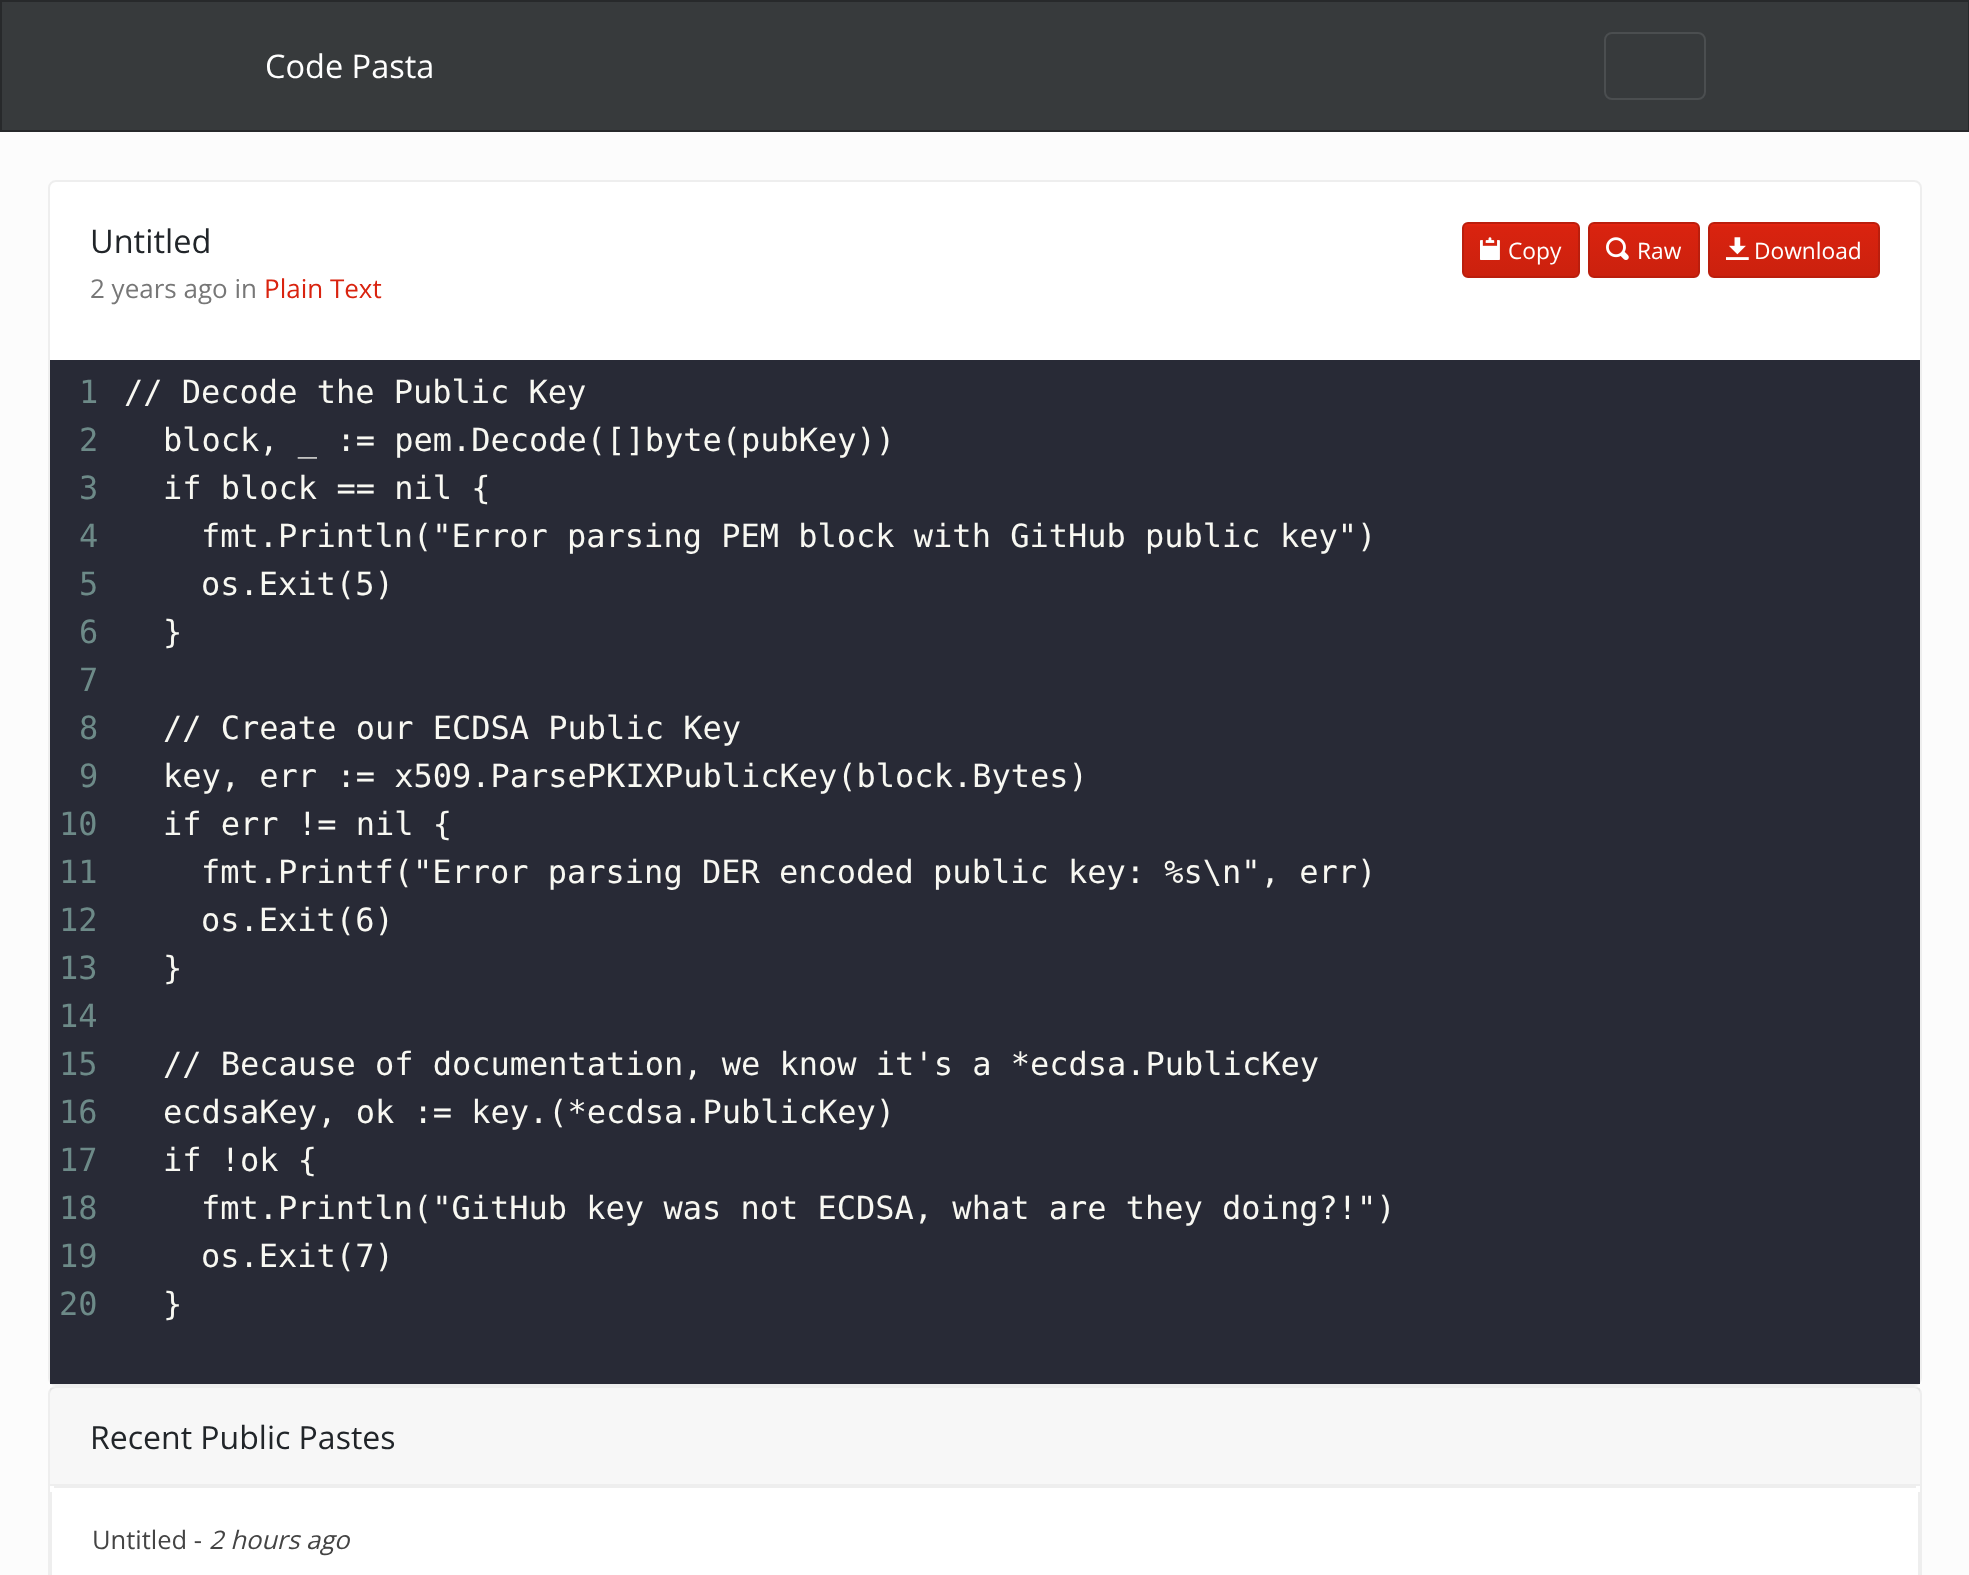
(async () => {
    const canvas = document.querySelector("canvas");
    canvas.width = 1969;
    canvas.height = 1575;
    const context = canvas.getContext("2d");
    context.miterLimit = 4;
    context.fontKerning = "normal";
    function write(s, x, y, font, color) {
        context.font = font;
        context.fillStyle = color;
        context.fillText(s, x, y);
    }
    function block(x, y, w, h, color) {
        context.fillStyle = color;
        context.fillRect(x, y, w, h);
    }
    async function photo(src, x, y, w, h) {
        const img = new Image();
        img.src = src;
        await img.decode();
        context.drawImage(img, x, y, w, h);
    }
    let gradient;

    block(0, 0, 1969, 1575, "rgb(252, 252, 252)");
    context.fillStyle = "rgb(55, 58, 60)";
    context.beginPath();
    context.rect(1, 1, 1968, 130);
    context.fill();
    context.strokeStyle = "rgb(39, 41, 43)";
    context.lineWidth = 2;
    context.stroke();
    write("Code Pasta", 265, 78, "32.5px Open Sans", "rgb(255, 255, 255)");
    context.beginPath();
    context.roundRect(1605, 33, 100, 66, 7);
    context.strokeStyle = "rgb(75, 78, 80)";
    context.stroke();
    context.beginPath();
    context.roundRect(49, 181, 1872, 1204, 7);
    context.fill();
    context.strokeStyle = "rgb(238, 238, 238)";
    context.stroke();
    write("Untitled", 90, 253, "32.5px Open Sans", "rgb(33, 37, 41)");
    write("2 years ago in", 90, 298, "26px Open Sans", "rgb(119, 119, 119)");
    write("Plain Text", 264, 298, "26px Open Sans", "rgb(217, 35, 15)");
    gradient = context.createLinearGradient(1521, 224, 1521, 276);
    gradient.addColorStop(0, "rgb(231, 37, 16)");
    gradient.addColorStop(0.06, "rgb(217, 35, 15)");
    gradient.addColorStop(1, "rgb(203, 33, 14)");
    context.fillStyle = gradient;
    context.fillRect(1464, 224, 114, 52);
    context.beginPath();
    context.roundRect(1463, 223, 116, 54, 5);
    context.strokeStyle = "rgb(186, 30, 13)";
    context.stroke();
    await photo("media/1.png", 1480, 237, 20, 23);
    write("Copy", 1508, 259, "22.75px Open Sans", "rgb(255, 255, 255)");
    gradient = context.createLinearGradient(1644, 224, 1644, 276);
    gradient.addColorStop(0, "rgb(231, 37, 16)");
    gradient.addColorStop(0.06, "rgb(217, 35, 15)");
    gradient.addColorStop(1, "rgb(203, 33, 14)");
    context.fillStyle = gradient;
    context.fillRect(1590, 224, 108, 52);
    context.beginPath();
    context.roundRect(1589, 223, 110, 54, 5);
    context.stroke();
    await photo("media/2.png", 1606, 237, 23, 23);
    write("Raw", 1637, 259, "22.75px Open Sans", "rgb(255, 255, 255)");
    gradient = context.createLinearGradient(1794, 224, 1794, 276);
    gradient.addColorStop(0, "rgb(231, 37, 16)");
    gradient.addColorStop(0.06, "rgb(217, 35, 15)");
    gradient.addColorStop(1, "rgb(203, 33, 14)");
    context.fillStyle = gradient;
    context.fillRect(1710, 224, 168, 52);
    context.beginPath();
    context.roundRect(1709, 223, 170, 54, 5);
    context.stroke();
    await photo("media/3.png", 1726, 237, 23, 23);
    write("Download", 1754, 259, "22.75px Open Sans", "rgb(255, 255, 255)");
    block(50, 360, 1870, 1024, "rgb(40, 42, 54)");
    write("1", 79, 403, "32px DejaVu Sans Mono", "rgb(109, 138, 136)");
    write("2", 79, 451, "32px DejaVu Sans Mono", "rgb(109, 138, 136)");
    write("3", 79, 499, "32px DejaVu Sans Mono", "rgb(109, 138, 136)");
    write("4", 79, 547, "32px DejaVu Sans Mono", "rgb(109, 138, 136)");
    write("5", 79, 595, "32px DejaVu Sans Mono", "rgb(109, 138, 136)");
    write("6", 79, 643, "32px DejaVu Sans Mono", "rgb(109, 138, 136)");
    write("7", 79, 691, "32px DejaVu Sans Mono", "rgb(109, 138, 136)");
    write("8", 79, 739, "32px DejaVu Sans Mono", "rgb(109, 138, 136)");
    write("9", 79, 787, "32px DejaVu Sans Mono", "rgb(109, 138, 136)");
    write("10", 59, 835, "32px DejaVu Sans Mono", "rgb(109, 138, 136)");
    write("11", 59, 883, "32px DejaVu Sans Mono", "rgb(109, 138, 136)");
    write("12", 59, 931, "32px DejaVu Sans Mono", "rgb(109, 138, 136)");
    write("13", 59, 979, "32px DejaVu Sans Mono", "rgb(109, 138, 136)");
    write("14", 59, 1027, "32px DejaVu Sans Mono", "rgb(109, 138, 136)");
    write("15", 59, 1075, "32px DejaVu Sans Mono", "rgb(109, 138, 136)");
    write("16", 59, 1123, "32px DejaVu Sans Mono", "rgb(109, 138, 136)");
    write("17", 59, 1171, "32px DejaVu Sans Mono", "rgb(109, 138, 136)");
    write("18", 59, 1219, "32px DejaVu Sans Mono", "rgb(109, 138, 136)");
    write("19", 59, 1267, "32px DejaVu Sans Mono", "rgb(109, 138, 136)");
    write("20", 59, 1315, "32px DejaVu Sans Mono", "rgb(109, 138, 136)");
    write("// Decode the Public Key", 124, 403, "32px DejaVu Sans Mono", "rgb(248, 248, 242)");
    write("block, _ := pem.Decode([]byte(pubKey))", 163, 451, "32px DejaVu Sans Mono", "rgb(248, 248, 242)");
    write("if block == nil {", 163, 499, "32px DejaVu Sans Mono", "rgb(248, 248, 242)");
    write("fmt.Println(\"Error parsing PEM block with GitHub public key\")", 201, 547, "32px DejaVu Sans Mono", "rgb(248, 248, 242)");
    write("os.Exit(5)", 201, 595, "32px DejaVu Sans Mono", "rgb(248, 248, 242)");
    write("}", 163, 643, "32px DejaVu Sans Mono", "rgb(248, 248, 242)");
    write("// Create our ECDSA Public Key", 163, 739, "32px DejaVu Sans Mono", "rgb(248, 248, 242)");
    write("key, err := x509.ParsePKIXPublicKey(block.Bytes)", 163, 787, "32px DejaVu Sans Mono", "rgb(248, 248, 242)");
    write("if err != nil {", 163, 835, "32px DejaVu Sans Mono", "rgb(248, 248, 242)");
    write("fmt.Printf(\"Error parsing DER encoded public key: %s\\n\", err)", 201, 883, "32px DejaVu Sans Mono", "rgb(248, 248, 242)");
    write("os.Exit(6)", 201, 931, "32px DejaVu Sans Mono", "rgb(248, 248, 242)");
    write("}", 163, 979, "32px DejaVu Sans Mono", "rgb(248, 248, 242)");
    write("// Because of documentation, we know it's a *ecdsa.PublicKey", 163, 1075, "32px DejaVu Sans Mono", "rgb(248, 248, 242)");
    write("ecdsaKey, ok := key.(*ecdsa.PublicKey)", 163, 1123, "32px DejaVu Sans Mono", "rgb(248, 248, 242)");
    write("if !ok {", 163, 1171, "32px DejaVu Sans Mono", "rgb(248, 248, 242)");
    write("fmt.Println(\"GitHub key was not ECDSA, what are they doing?!\")", 201, 1219, "32px DejaVu Sans Mono", "rgb(248, 248, 242)");
    write("os.Exit(7)", 201, 1267, "32px DejaVu Sans Mono", "rgb(248, 248, 242)");
    write("}", 163, 1315, "32px DejaVu Sans Mono", "rgb(248, 248, 242)");
    context.fillStyle = "rgb(255, 255, 255)";
    context.beginPath();
    context.roundRect(49, 1387, 1872, 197, 7);
    context.fill();
    context.strokeStyle = "rgb(238, 238, 238)";
    context.stroke();
    block(50, 1388, 1870, 96, "rgba(0, 0, 0, 0.03)");
    block(50, 1484, 1870, 2, "rgb(238, 238, 238)");
    write("Recent Public Pastes", 90, 1449, "32px Open Sans", "rgb(33, 37, 41)");
    block(54, 1486, 1862, 2, "rgb(238, 238, 238)");
    block(1918, 1492, 2, 83, "rgb(238, 238, 238)");
    block(50, 1492, 2, 83, "rgb(238, 238, 238)");
    write("Untitled -", 92, 1549, "25.5px Open Sans", "rgb(68, 68, 68)");
    write("2 hours ago", 209, 1549, "italic 25.5px Open Sans", "rgb(68, 68, 68)");
})();
